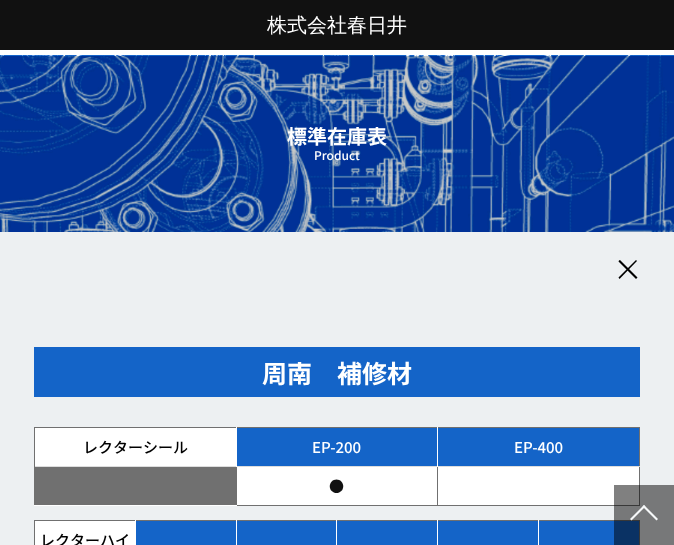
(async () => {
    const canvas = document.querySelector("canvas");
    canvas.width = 674;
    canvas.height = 545;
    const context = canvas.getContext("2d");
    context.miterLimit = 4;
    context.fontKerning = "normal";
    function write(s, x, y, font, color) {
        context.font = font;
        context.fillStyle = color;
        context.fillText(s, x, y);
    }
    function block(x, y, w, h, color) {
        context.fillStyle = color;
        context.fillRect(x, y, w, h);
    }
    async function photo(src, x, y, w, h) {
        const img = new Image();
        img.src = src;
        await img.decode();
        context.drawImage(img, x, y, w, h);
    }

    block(0, 0, 674, 545, "rgb(255, 255, 255)");
    block(0, 0, 674, 50, "rgb(17, 17, 17)");
    write("株式会社春日井", 267, 32, "500 20px WenQuanYi Zen Hei", "rgb(255, 255, 255)");
    block(0, 232, 674, 313, "rgb(237, 240, 242)");
    block(614, 485, 60, 60, "rgb(119, 120, 121)");
    await photo("media/1.png", 0, 55, 674, 177);
    write("標準在庫表", 287, 144, "bold 20px Noto Sans JP", "rgb(255, 255, 255)");
    write("Product", 314, 160, "500 12px Noto Sans JP", "rgb(255, 255, 255)");
    context.fillStyle = "rgb(0, 0, 0)";
    context.beginPath();
    context.moveTo(620, 260);
    context.lineTo(637.5, 277.5);
    context.lineTo(636, 279);
    context.lineTo(618.5, 261.5);
    context.lineTo(619, 260.5);
    context.closePath();
    context.fill();
    context.beginPath();
    context.moveTo(619.5, 279);
    context.lineTo(618.5, 277.5);
    context.lineTo(636, 260);
    context.lineTo(637, 261);
    context.closePath();
    context.fill();
    block(34, 347, 606, 50, "rgb(20, 100, 200)");
    write("周南　補修材", 262, 383, "bold 25px Noto Sans JP", "rgb(255, 255, 255)");
    block(34, 427, 606, 1, "rgb(112, 112, 112)");
    block(639, 466, 1, 19, "rgb(112, 112, 112)");
    block(639, 427, 1, 40, "rgb(112, 112, 112)");
    block(35, 428, 201, 38, "rgb(255, 255, 255)");
    block(437, 466, 203, 1, "rgb(221, 221, 221)");
    block(237, 505, 377, 1, "rgb(112, 112, 112)");
    block(437, 466, 1, 40, "rgb(112, 112, 112)");
    block(236, 466, 202, 1, "rgb(221, 221, 221)");
    block(236, 466, 1, 40, "rgb(112, 112, 112)");
    block(34, 466, 203, 1, "rgb(221, 221, 221)");
    block(34, 427, 1, 40, "rgb(112, 112, 112)");
    write("レクターシール", 83, 453, "500 15px Noto Sans JP", "rgb(0, 0, 0)");
    block(237, 428, 200, 38, "rgb(20, 100, 200)");
    block(236, 427, 1, 40, "rgb(255, 255, 255)");
    write("EP-200", 312, 453, "500 15px Noto Sans JP", "rgb(255, 255, 255)");
    block(438, 428, 201, 38, "rgb(20, 100, 200)");
    block(437, 427, 1, 40, "rgb(255, 255, 255)");
    write("EP-400", 514, 453, "500 15px Noto Sans JP", "rgb(255, 255, 255)");
    block(639, 485, 1, 21, "rgb(56, 56, 56)");
    block(614, 505, 26, 1, "rgb(56, 56, 56)");
    block(34, 467, 202, 38, "rgb(112, 112, 112)");
    block(34, 505, 203, 1, "rgb(255, 255, 255)");
    block(237, 467, 200, 38, "rgb(255, 255, 255)");
    write("●", 329, 492, "500 15px Noto Sans JP", "rgb(17, 17, 17)");
    block(438, 467, 201, 38, "rgb(255, 255, 255)");
    block(614, 485, 25, 20, "rgb(128, 128, 128)");
    block(34, 520, 580, 1, "rgb(112, 112, 112)");
    block(614, 520, 26, 1, "rgb(56, 56, 56)");
    block(639, 520, 1, 25, "rgb(56, 56, 56)");
    block(34, 520, 1, 25, "rgb(112, 112, 112)");
    block(35, 521, 100, 24, "rgb(255, 255, 255)");
    write("レクターハイ", 40, 546, "500 15px Noto Sans JP", "rgb(0, 0, 0)");
    block(136, 521, 100, 24, "rgb(20, 100, 200)");
    block(135, 520, 1, 25, "rgb(255, 255, 255)");
    block(237, 521, 99, 24, "rgb(20, 100, 200)");
    block(236, 520, 1, 25, "rgb(255, 255, 255)");
    block(337, 521, 100, 24, "rgb(20, 100, 200)");
    block(336, 520, 1, 25, "rgb(255, 255, 255)");
    block(438, 521, 100, 24, "rgb(20, 100, 200)");
    block(437, 520, 1, 25, "rgb(255, 255, 255)");
    block(539, 521, 75, 24, "rgb(20, 100, 200)");
    block(614, 521, 25, 24, "rgb(10, 50, 100)");
    block(538, 520, 1, 25, "rgb(255, 255, 255)");
    context.fillStyle = "rgb(246, 248, 249)";
    context.beginPath();
    context.moveTo(644, 505);
    context.lineTo(658, 519);
    context.lineTo(656.5, 520.5);
    context.lineTo(642.5, 506.5);
    context.closePath();
    context.fill();
    context.beginPath();
    context.moveTo(644, 505);
    context.lineTo(645.5, 506.5);
    context.lineTo(631.5, 520.5);
    context.lineTo(630, 519);
    context.closePath();
    context.fill();
})();
